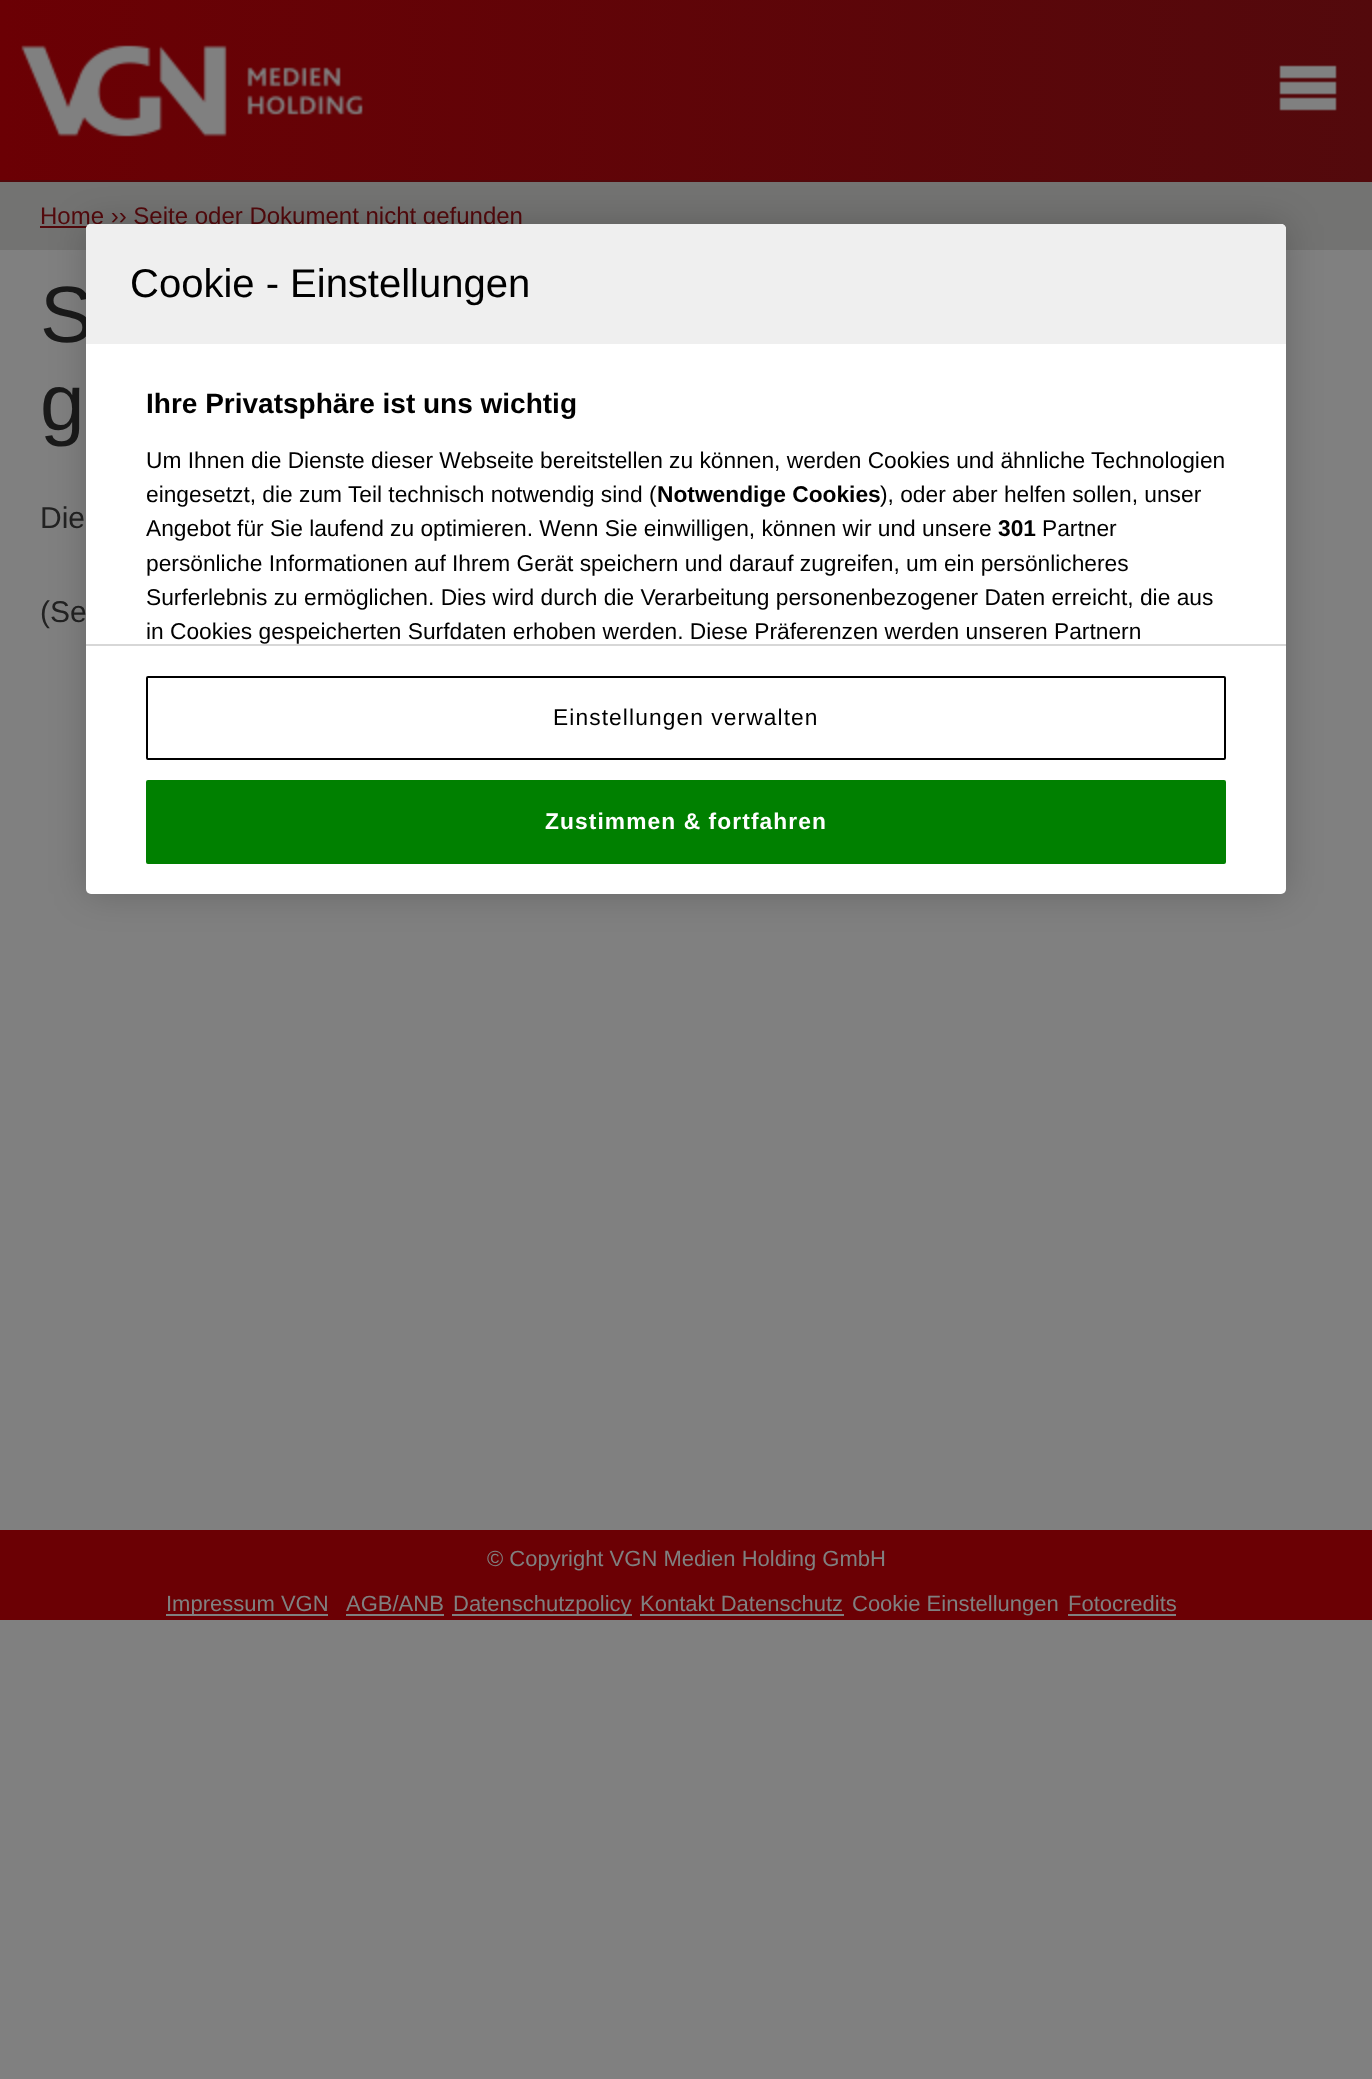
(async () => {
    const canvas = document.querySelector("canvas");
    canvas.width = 1372;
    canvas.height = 2079;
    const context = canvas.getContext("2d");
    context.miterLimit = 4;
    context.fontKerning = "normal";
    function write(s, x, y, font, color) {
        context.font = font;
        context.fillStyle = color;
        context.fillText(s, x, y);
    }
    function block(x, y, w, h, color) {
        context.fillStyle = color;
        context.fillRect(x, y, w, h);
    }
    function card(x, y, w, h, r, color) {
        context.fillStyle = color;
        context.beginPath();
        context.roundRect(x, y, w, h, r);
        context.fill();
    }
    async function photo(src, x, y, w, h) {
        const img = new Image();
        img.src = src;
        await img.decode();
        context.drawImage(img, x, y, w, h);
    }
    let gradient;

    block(0, 0, 1372, 2079, "rgb(128, 128, 128)");
    gradient = context.createLinearGradient(0, 90, 1372, 90);
    gradient.addColorStop(0, "rgb(107, 0, 4)");
    gradient.addColorStop(1, "rgb(83, 9, 12)");
    context.fillStyle = gradient;
    context.fillRect(0, 0, 1372, 180);
    block(0, 180, 1372, 2, "rgb(83, 9, 12)");
    await photo("media/1.png", 21, 45, 342, 92);
    await photo("media/2.png", 1279, 65, 58, 46);
    block(0, 182, 1372, 68, "rgb(115, 115, 114)");
    block(40, 226, 47, 2, "rgb(83, 9, 12)");
    write("Home ›› Seite oder Dokument nicht gefunden", 40, 224, "24px Liberation Sans", "rgb(83, 9, 12)");
    write("S", 40, 342, "80px Liberation Sans", "rgb(26, 26, 26)");
    write("g", 40, 430, "80px Liberation Sans", "rgb(26, 26, 26)");
    write("Die", 40, 528, "30px Liberation Sans", "rgb(34, 34, 34)");
    write("(Se", 40, 622, "30px Liberation Sans", "rgb(34, 34, 34)");
    block(0, 1530, 1372, 90, "rgb(107, 0, 4)");
    write("© Copyright VGN Medien Holding GmbH", 487, 1566, "22px Liberation Sans", "rgb(128, 128, 128)");
    block(166, 1614, 162, 2, "rgb(128, 128, 128)");
    write("Impressum VGN", 166, 1611, "22px Liberation Sans", "rgb(128, 128, 128)");
    write("AGB/ANB", 346, 1611, "22px Liberation Sans", "rgb(128, 128, 128)");
    block(346, 1614, 98, 2, "rgb(128, 128, 128)");
    block(452, 1614, 180, 2, "rgb(128, 128, 128)");
    write("Datenschutzpolicy", 453, 1611, "22px Liberation Sans", "rgb(128, 128, 128)");
    write("Kontakt Datenschutz", 640, 1611, "22px Liberation Sans", "rgb(128, 128, 128)");
    block(640, 1614, 204, 2, "rgb(128, 128, 128)");
    write("Cookie Einstellungen", 852, 1611, "22px Liberation Sans", "rgb(128, 128, 128)");
    write("Fotocredits", 1068, 1611, "22px Liberation Sans", "rgb(128, 128, 128)");
    block(1068, 1614, 108, 2, "rgb(128, 128, 128)");
    context.fillStyle = "rgba(0, 0, 0, 0.2)";
    context.filter = "blur(18px)";
    context.beginPath();
    context.roundRect(86, 224, 1200, 670, 5);
    context.fill();
    context.filter = "none";
    card(86, 224, 1200, 670, 5, "rgb(255, 255, 255)");
    context.fillStyle = "rgb(239, 239, 239)";
    context.beginPath();
    context.roundRect(86, 224, 1200, 120, [5, 5, 0, 0]);
    context.fill();
    write("Cookie - Einstellungen", 130, 297, "40px Liberation Sans", "rgb(0, 0, 0)");
    write("Ihre Privatsphäre ist uns wichtig", 146, 413, "bold 28px Liberation Sans", "rgb(0, 0, 0)");
    write("Um Ihnen die Dienste dieser Webseite bereitstellen zu können, werden Cookies und ähnliche Technologien", 146, 468, "22.75px Liberation Sans", "rgb(0, 0, 0)");
    write("eingesetzt, die zum Teil technisch notwendig sind (", 146, 502, "22.75px Liberation Sans", "rgb(0, 0, 0)");
    write("Notwendige Cookies", 657, 502, "bold 22.75px Liberation Sans", "rgb(0, 0, 0)");
    write("), oder aber helfen sollen, unser", 880, 502, "22.75px Liberation Sans", "rgb(0, 0, 0)");
    write("Angebot für Sie laufend zu optimieren. Wenn Sie einwilligen, können wir und unsere", 146, 536, "22.75px Liberation Sans", "rgb(0, 0, 0)");
    write("301", 998, 536, "bold 22.75px Liberation Sans", "rgb(0, 0, 0)");
    write("Partner", 1042, 536, "22.75px Liberation Sans", "rgb(0, 0, 0)");
    write("persönliche Informationen auf Ihrem Gerät speichern und darauf zugreifen, um ein persönlicheres", 146, 571, "22.75px Liberation Sans", "rgb(0, 0, 0)");
    write("Surferlebnis zu ermöglichen. Dies wird durch die Verarbeitung personenbezogener Daten erreicht, die aus", 146, 605, "22.75px Liberation Sans", "rgb(0, 0, 0)");
    write("in Cookies gespeicherten Surfdaten erhoben werden. Diese Präferenzen werden unseren Partnern", 146, 639, "22.75px Liberation Sans", "rgb(0, 0, 0)");
    block(86, 644, 1200, 2, "rgb(215, 215, 215)");
    context.beginPath();
    context.roundRect(147, 677, 1078, 82, 1);
    context.strokeStyle = "rgb(0, 0, 0)";
    context.lineWidth = 2;
    context.stroke();
    context.letterSpacing = "1.1px";
    write("Einstellungen verwalten", 553, 725, "22.75px Liberation Sans", "rgb(0, 0, 0)");
    context.fillStyle = "rgb(0, 128, 0)";
    context.beginPath();
    context.roundRect(147, 781, 1078, 82, 1);
    context.fill();
    context.strokeStyle = "rgb(0, 128, 0)";
    context.stroke();
    write("Zustimmen & fortfahren", 545, 829, "bold 22.75px Liberation Sans", "rgb(255, 255, 255)");
})();
